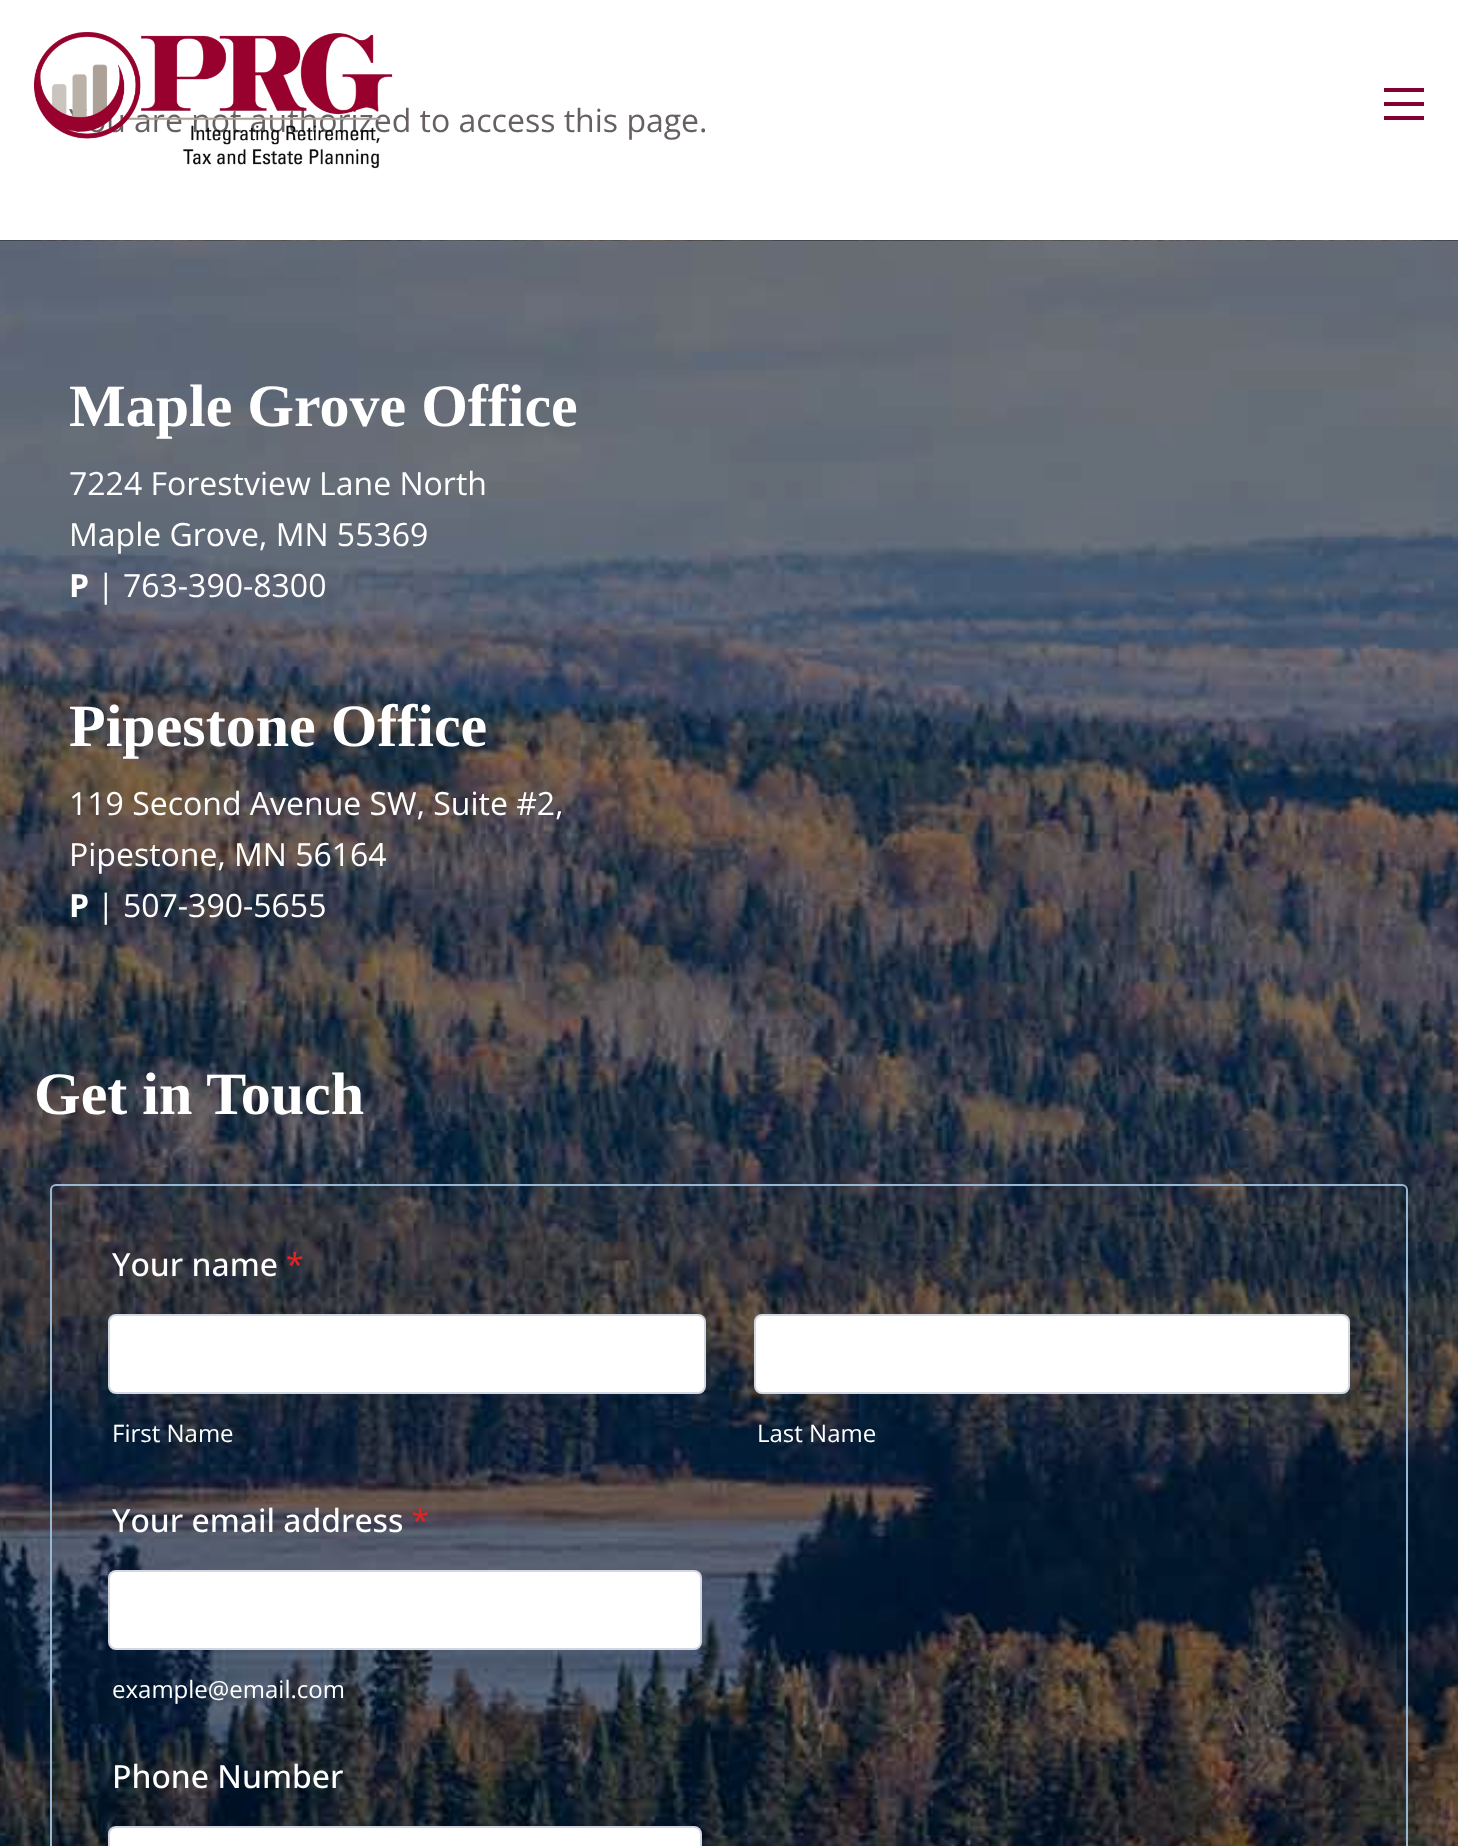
(async () => {
    const canvas = document.querySelector("canvas");
    canvas.width = 1458;
    canvas.height = 1846;
    const context = canvas.getContext("2d");
    context.miterLimit = 4;
    context.fontKerning = "normal";
    function write(s, x, y, font, color) {
        context.font = font;
        context.fillStyle = color;
        context.fillText(s, x, y);
    }
    function block(x, y, w, h, color) {
        context.fillStyle = color;
        context.fillRect(x, y, w, h);
    }
    async function photo(src, x, y, w, h) {
        const img = new Image();
        img.src = src;
        await img.decode();
        context.drawImage(img, x, y, w, h);
    }

    block(0, 0, 1458, 1846, "rgb(255, 255, 255)");
    write("You are not authorized to access this page.", 69, 132, "32px Open Sans", "rgb(102, 96, 100)");
    await photo("media/1.png", 34, 32, 359, 137);
    block(1384, 116, 40, 4, "rgb(132, 0, 50)");
    block(1384, 102, 40, 4, "rgb(132, 0, 50)");
    block(1384, 88, 40, 4, "rgb(132, 0, 50)");
    await photo("media/2.png", 0, 240, 1458, 1606);
    write("Maple Grove Office", 69, 426, "bold 60px Liberation Serif", "rgb(255, 255, 255)");
    write("7224 Forestview Lane North", 69, 495, "32px Open Sans", "rgb(255, 255, 255)");
    write("Maple Grove, MN 55369", 69, 546, "32px Open Sans", "rgb(255, 255, 255)");
    write("P", 69, 597, "bold 32px Open Sans", "rgb(255, 255, 255)");
    write("| 763-390-8300", 97, 597, "32px Open Sans", "rgb(255, 255, 255)");
    write("Pipestone Office", 69, 746, "bold 60px Liberation Serif", "rgb(255, 255, 255)");
    write("119 Second Avenue SW, Suite #2,", 69, 815, "32px Open Sans", "rgb(255, 255, 255)");
    write("Pipestone, MN 56164", 69, 866, "32px Open Sans", "rgb(255, 255, 255)");
    write("P", 69, 917, "bold 32px Open Sans", "rgb(255, 255, 255)");
    write("| 507-390-5655", 97, 917, "32px Open Sans", "rgb(255, 255, 255)");
    write("Get in Touch", 34, 1114, "bold 60px Liberation Serif", "rgb(255, 255, 255)");
    await photo("media/3.png", 50, 1184, 1358, 662);
})();
